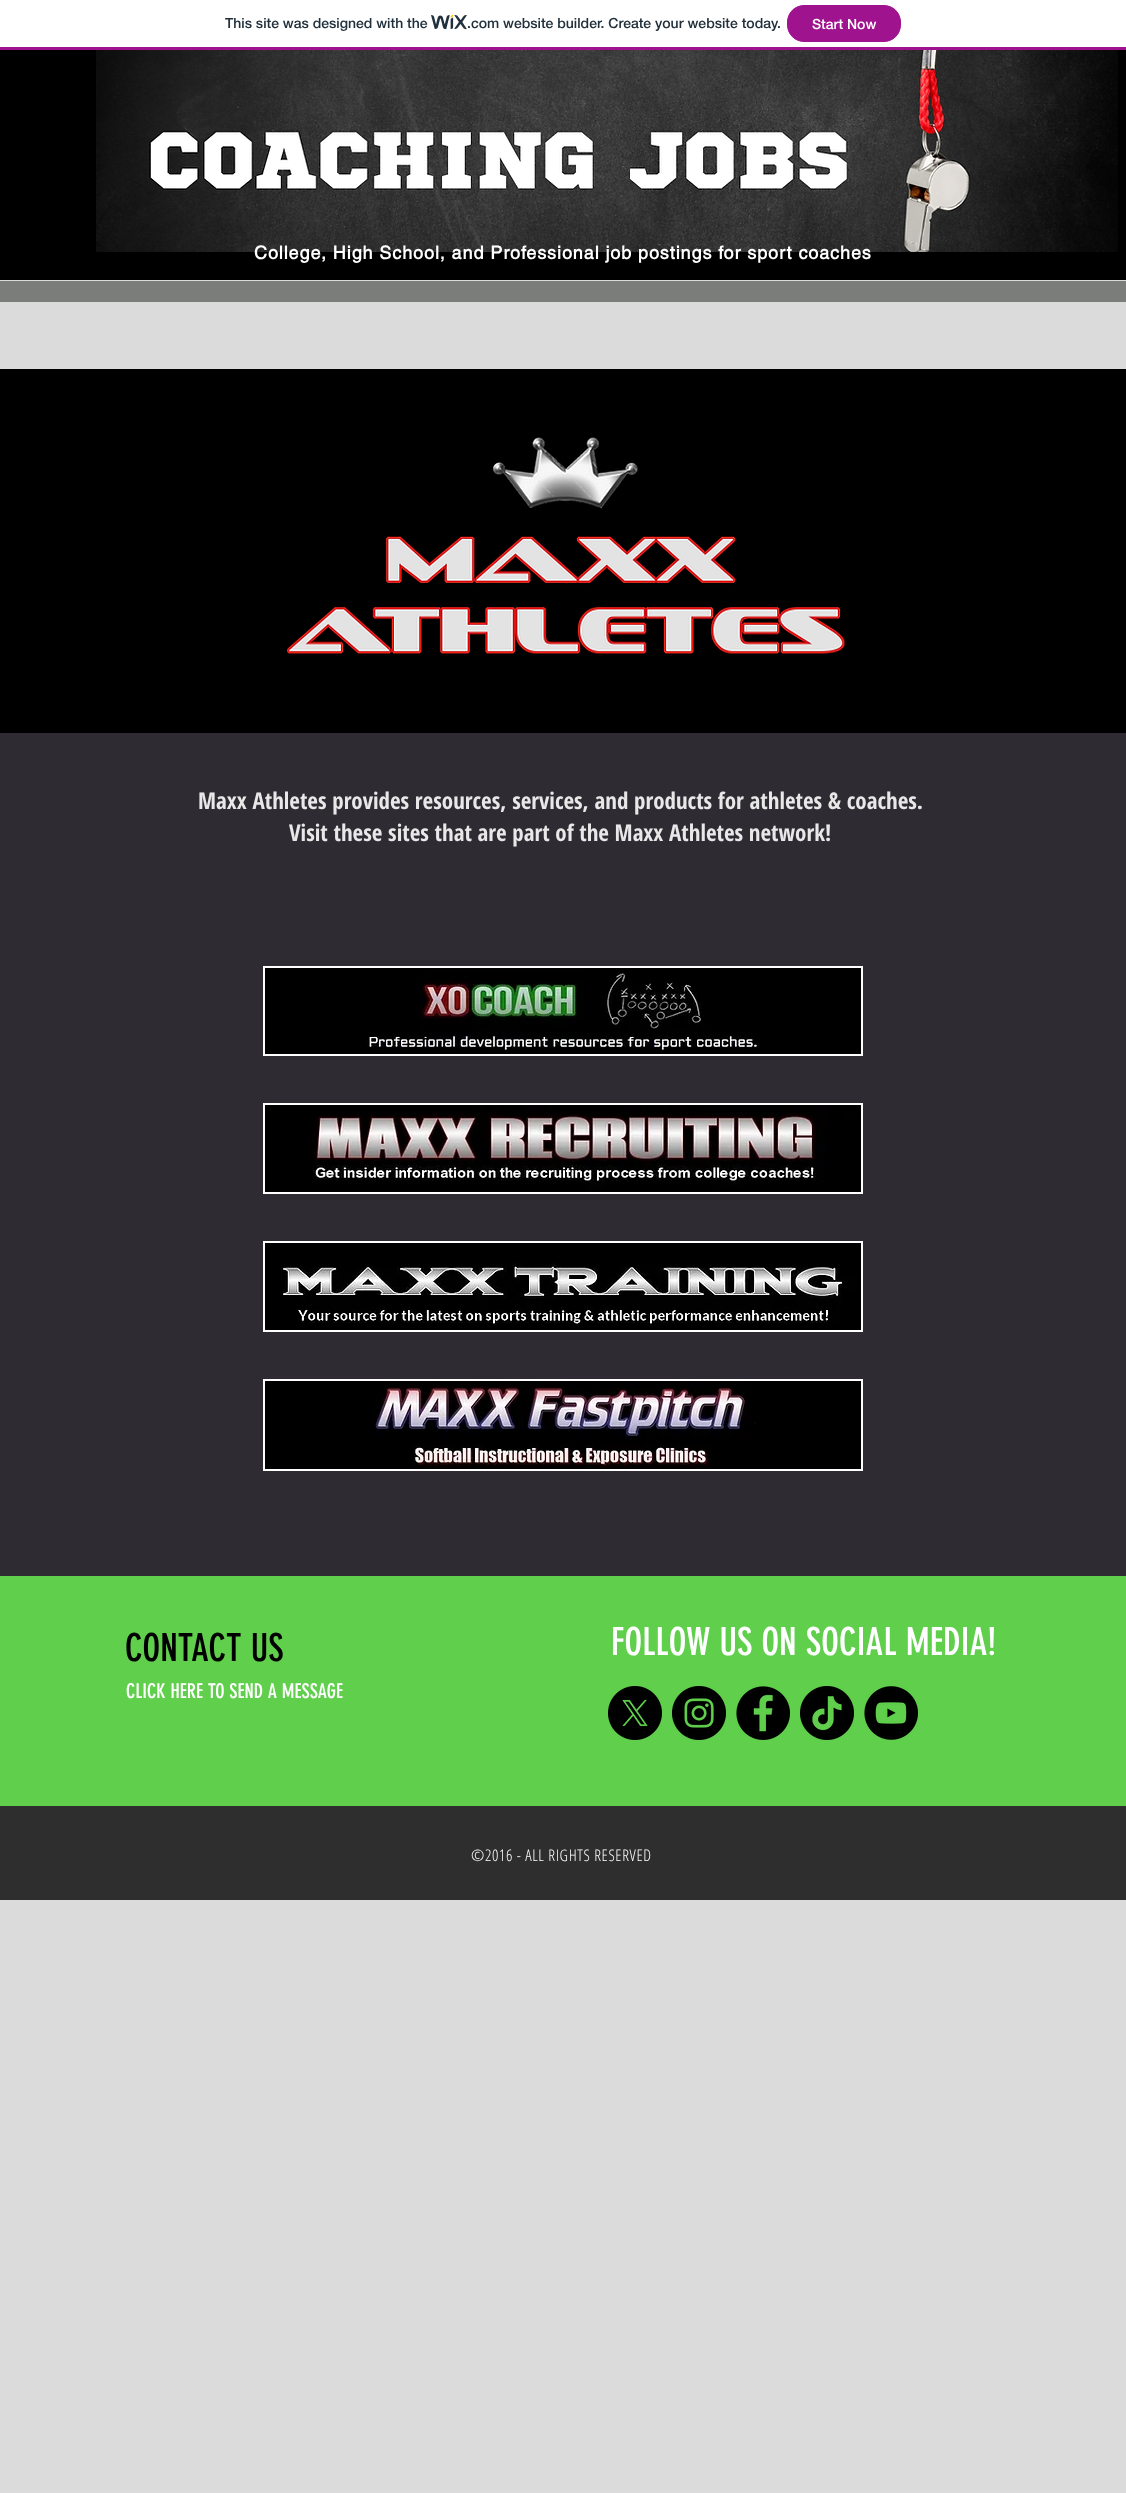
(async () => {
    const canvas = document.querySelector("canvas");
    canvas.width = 1126;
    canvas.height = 2493;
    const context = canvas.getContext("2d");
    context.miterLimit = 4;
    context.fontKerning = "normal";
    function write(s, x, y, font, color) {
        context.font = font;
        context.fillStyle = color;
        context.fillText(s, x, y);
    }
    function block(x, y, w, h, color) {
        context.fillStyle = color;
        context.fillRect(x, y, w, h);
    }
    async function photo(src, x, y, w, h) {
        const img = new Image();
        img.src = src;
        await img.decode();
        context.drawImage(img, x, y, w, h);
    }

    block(0, 0, 1126, 2493, "rgb(255, 255, 255)");
    block(0, 47, 1126, 3, "rgb(160, 19, 142)");
    write("This site was designed with the", 225, 28, "500 14px 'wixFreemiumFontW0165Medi'", "rgb(32, 48, 60)");
    await photo("media/1.png", 431, 15, 36, 15);
    write(".com website builder. Create your website today.", 467, 28, "500 14px 'wixFreemiumFontW0165Medi'", "rgb(32, 48, 60)");
    context.fillStyle = "rgb(160, 19, 142)";
    context.beginPath();
    context.roundRect(787.5, 5.5, 113, 36, 16.5);
    context.fill();
    context.strokeStyle = "rgb(160, 19, 142)";
    context.stroke();
    write("Start Now", 812, 29, "500 14px 'wixFreemiumFontW0165Medi'", "rgb(255, 255, 255)");
    block(0, 50, 1126, 230, "rgb(0, 0, 0)");
    await photo("media/2.png", 96, 50, 1022, 202);
    context.letterSpacing = "0.9px";
    write("College, High School, and Professional job postings for sport coaches", 254, 259, "bold 18px helvetica", "rgb(255, 255, 255)");
    block(0, 280, 1126, 2213, "rgb(219, 219, 219)");
    block(0, 281, 1126, 21, "rgb(122, 125, 121)");
    block(0, 369, 1126, 364, "rgb(0, 0, 0)");
    await photo("media/3.png", 287, 437, 560, 219);
    block(0, 733, 1126, 843, "rgb(47, 43, 50)");
    context.letterSpacing = "0px";
    write("Maxx Athletes provides resources, services, and products for athletes & coaches.", 198, 809, "bold 23px Open Sans Condensed", "rgb(232, 232, 232)");
    write("Visit these sites that are part of the Maxx Athletes network!", 289, 841, "bold 23px Open Sans Condensed", "rgb(232, 232, 232)");
    block(263, 966, 600, 90, "rgb(255, 255, 255)");
    await photo("media/4.png", 265, 968, 596, 86);
    block(263, 1103, 600, 91, "rgb(255, 255, 255)");
    await photo("media/5.png", 265, 1105, 596, 87);
    block(263, 1241, 600, 91, "rgb(255, 255, 255)");
    await photo("media/6.png", 265, 1243, 596, 87);
    block(263, 1379, 600, 92, "rgb(255, 255, 255)");
    await photo("media/7.png", 265, 1381, 596, 88);
    block(0, 1576, 1126, 230, "rgb(96, 207, 76)");
    write("CONTACT US", 125, 1661, "38px 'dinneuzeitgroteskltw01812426'", "rgb(0, 0, 0)");
    write("FOLLOW US ON SOCIAL MEDIA!", 611, 1655, "38px 'dinneuzeitgroteskltw01812426'", "rgb(255, 255, 255)");
    write("CLICK HERE TO SEND A MESSAGE", 126, 1698, "20px 'dinneuzeitgroteskltw01812426'", "rgb(255, 255, 255)");
    await photo("media/8.png", 608, 1686, 54, 54);
    await photo("media/9.png", 672, 1686, 54, 54);
    await photo("media/10.png", 736, 1686, 54, 54);
    await photo("media/11.png", 800, 1686, 54, 54);
    await photo("media/12.png", 864, 1686, 54, 54);
    block(0, 1806, 1126, 94, "rgb(47, 46, 46)");
    context.letterSpacing = "0.65px";
    write("©2016 - ALL RIGHTS RESERVED", 471, 1861, "300 16px Open Sans Condensed", "rgb(255, 255, 255)");
})();
